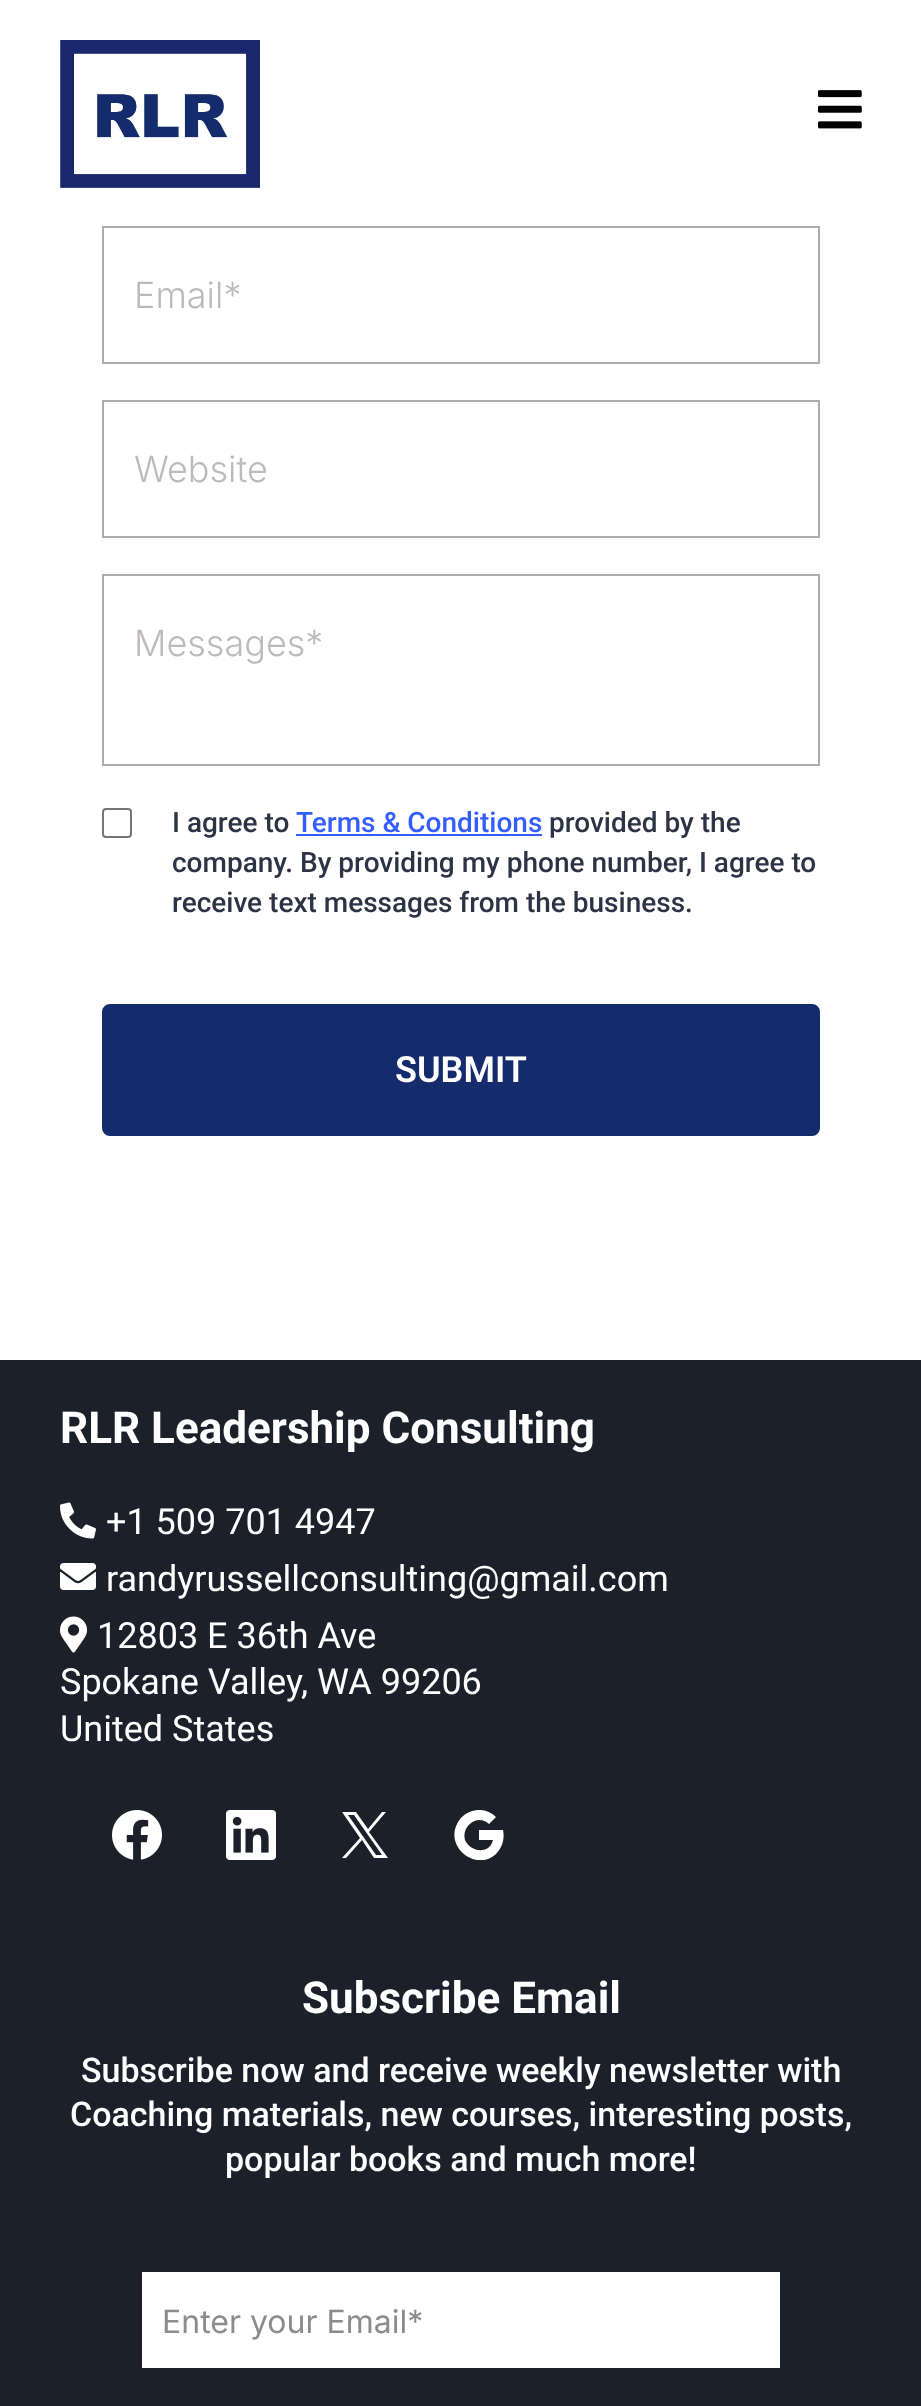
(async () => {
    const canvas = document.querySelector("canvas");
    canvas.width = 921;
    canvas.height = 2406;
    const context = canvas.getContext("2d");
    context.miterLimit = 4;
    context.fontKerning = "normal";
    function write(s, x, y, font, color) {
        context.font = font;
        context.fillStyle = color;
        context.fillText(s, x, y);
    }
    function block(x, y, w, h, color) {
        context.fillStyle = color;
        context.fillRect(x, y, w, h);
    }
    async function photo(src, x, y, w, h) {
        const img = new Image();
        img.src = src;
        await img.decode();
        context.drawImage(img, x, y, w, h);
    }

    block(0, 0, 921, 2406, "rgb(255, 255, 255)");
    await photo("media/1.png", 60, 40, 200, 148);
    await photo("media/2.png", 818, 90, 44, 39);
    context.strokeStyle = "rgb(172, 172, 172)";
    context.lineWidth = 2;
    context.strokeRect(103, 227, 716, 136);
    write("Email*", 134, 308, "300 36px Inter", "rgb(191, 186, 186)");
    context.strokeRect(103, 401, 716, 136);
    write("Website", 134, 482, "300 36px Inter", "rgb(191, 186, 186)");
    context.strokeRect(103, 575, 716, 190);
    write("Messages*", 134, 656, "300 36px Inter", "rgb(191, 186, 186)");
    context.beginPath();
    context.roundRect(103, 809, 28, 28, 3);
    context.strokeStyle = "rgb(118, 118, 118)";
    context.stroke();
    write("I agree to", 172, 832, "500 28px Roboto", "rgb(44, 51, 69)");
    write("Terms & Conditions", 296, 832, "500 28px Roboto", "rgb(51, 93, 255)");
    block(296, 834, 246, 2, "rgb(51, 93, 255)");
    write("provided by the", 549, 832, "500 28px Roboto", "rgb(44, 51, 69)");
    write("company. By providing my phone number, I agree to", 172, 872, "500 28px Roboto", "rgb(44, 51, 69)");
    write("receive text messages from the business.", 172, 912, "500 28px Roboto", "rgb(44, 51, 69)");
    context.fillStyle = "rgb(20, 44, 108)";
    context.beginPath();
    context.roundRect(104, 1006, 714, 128, 6);
    context.fill();
    context.strokeStyle = "rgb(20, 44, 108)";
    context.lineWidth = 4;
    context.stroke();
    write("SUBMIT", 395, 1082, "600 36px Roboto", "rgb(255, 255, 255)");
    block(0, 1360, 921, 1046, "rgb(27, 32, 42)");
    write("RLR Leadership Consulting", 60, 1443, "bold 44px Roboto", "rgb(255, 255, 255)");
    await photo("media/3.png", 60, 1502, 36, 37);
    write("+1 509 701 4947", 106, 1534, "36px Roboto", "rgb(255, 255, 255)");
    await photo("media/4.png", 60, 1563, 36, 27);
    write("randyrussellconsulting@gmail.com", 106, 1591, "36px Roboto", "rgb(255, 255, 255)");
    await photo("media/5.png", 60, 1616, 27, 37);
    write("12803 E 36th Ave", 97, 1648, "36px Roboto", "rgb(255, 255, 255)");
    write("Spokane Valley, WA 99206", 60, 1694, "36px Roboto", "rgb(255, 255, 255)");
    write("United States", 60, 1741, "36px Roboto", "rgb(255, 255, 255)");
    await photo("media/6.png", 112, 1810, 50, 50);
    await photo("media/7.png", 226, 1810, 50, 50);
    context.beginPath();
    context.moveTo(369, 1832);
    context.lineTo(386, 1812);
    context.lineTo(382, 1812);
    context.lineTo(368, 1829);
    context.lineTo(356, 1812);
    context.lineTo(342, 1812);
    context.lineTo(360, 1838);
    context.lineTo(342, 1858);
    context.lineTo(346, 1858);
    context.lineTo(362, 1840);
    context.lineTo(374, 1858);
    context.lineTo(388, 1858);
    context.moveTo(348, 1815);
    context.lineTo(354, 1815);
    context.lineTo(382, 1855);
    context.lineTo(376, 1855);
    context.fill();
    context.save();
    context.beginPath();
    context.rect(454, 1810, 50, 50);
    context.clip();
    context.beginPath();
    context.moveTo(489, 1824);
    context.bezierCurveTo(478, 1813, 461, 1826, 465, 1840);
    context.bezierCurveTo(469, 1849, 480, 1853, 488, 1848);
    context.bezierCurveTo(491, 1846, 492, 1843, 493, 1840);
    context.lineTo(479, 1840);
    context.lineTo(479, 1830);
    context.lineTo(503, 1830);
    context.bezierCurveTo(505, 1839, 502, 1848, 496, 1854);
    context.bezierCurveTo(477, 1872, 445, 1848, 457, 1824);
    context.bezierCurveTo(464, 1809, 484, 1805, 496, 1817);
    context.closePath();
    context.fill("evenodd");
    context.restore();
    write("Subscribe Email", 302, 2013, "bold 44px Roboto", "rgb(255, 255, 255)");
    write("Subscribe now and receive weekly newsletter with", 81, 2082, "500 34px Roboto", "rgb(255, 255, 255)");
    write("Coaching materials, new courses, interesting posts,", 70, 2126, "500 34px Roboto", "rgb(255, 255, 255)");
    write("popular books and much more!", 225, 2171, "500 34px Roboto", "rgb(255, 255, 255)");
    block(142, 2272, 638, 96, "rgb(255, 255, 255)");
    write("Enter your Email*", 162, 2333, "32px Inter", "rgb(140, 140, 140)");
})();
